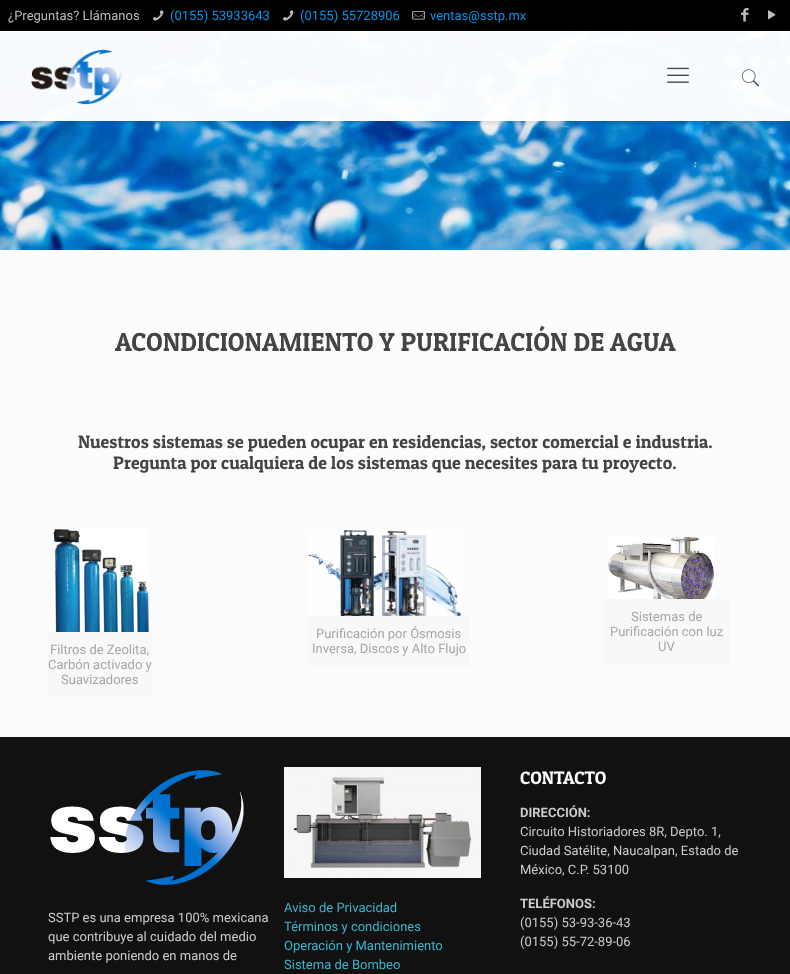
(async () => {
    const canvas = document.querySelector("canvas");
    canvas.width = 790;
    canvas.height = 974;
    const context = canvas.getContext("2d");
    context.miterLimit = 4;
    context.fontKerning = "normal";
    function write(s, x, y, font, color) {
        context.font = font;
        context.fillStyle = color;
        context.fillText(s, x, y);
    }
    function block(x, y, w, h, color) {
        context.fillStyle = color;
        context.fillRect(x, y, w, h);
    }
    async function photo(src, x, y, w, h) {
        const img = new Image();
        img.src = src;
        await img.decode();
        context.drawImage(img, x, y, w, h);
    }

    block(0, 0, 790, 974, "rgb(252, 252, 252)");
    await photo("media/1.png", 0, 31, 790, 219);
    block(0, 0, 790, 31, "rgb(0, 0, 0)");
    write("¿Preguntas? Llámanos", 8, 20, "13px Roboto", "rgb(187, 187, 187)");
    await photo("media/2.png", 153, 10, 11, 11);
    write("(0155) 53933643", 170, 20, "13px Roboto", "rgb(0, 149, 235)");
    await photo("media/2.png", 283, 10, 11, 11);
    write("(0155) 55728906", 300, 20, "13px Roboto", "rgb(0, 149, 235)");
    await photo("media/3.png", 412, 11, 13, 9);
    write("ventas@sstp.mx", 430, 20, "13px Roboto", "rgb(0, 149, 235)");
    await photo("media/4.png", 741, 8, 8, 14);
    await photo("media/5.png", 768, 10, 8, 10);
    context.save();
    context.beginPath();
    context.rect(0, 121, 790, 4);
    context.clip();
    context.fillStyle = "rgba(0, 0, 0, 0.1)";
    context.filter = "blur(2.5px)";
    context.beginPath();
    context.rect(0, 33, 790, 90);
    context.fill();
    context.filter = "none";
    context.restore();
    block(0, 31, 790, 90, "rgba(255, 255, 255, 0.97)");
    await photo("media/6.png", 31, 49, 91, 56);
    await photo("media/7.png", 667, 67, 22, 16);
    await photo("media/8.png", 741, 69, 19, 18);
    write("ACONDICIONAMIENTO Y PURIFICACIÓN DE AGUA", 115, 351, "26px Patua One", "rgb(68, 68, 68)");
    write("Nuestros sistemas se pueden ocupar en residencias, sector comercial e industria.", 78, 448, "18px Patua One", "rgb(68, 68, 68)");
    write("Pregunta por cualquiera de los sistemas que necesites para tu proyecto.", 113, 469, "18px Patua One", "rgb(68, 68, 68)");
    await photo("media/9.png", 308, 530, 154, 86);
    block(308, 616, 162, 50, "rgb(248, 248, 248)");
    write("Purificación por Ósmosis", 316, 638, "13px Roboto", "rgb(166, 166, 166)");
    write("Inversa, Discos y Alto Flujo", 312, 653, "13px Roboto", "rgb(166, 166, 166)");
    await photo("media/10.png", 608, 537, 106, 62);
    block(603, 599, 127, 65, "rgb(248, 248, 248)");
    write("Sistemas de", 631, 621, "13px Roboto", "rgb(166, 166, 166)");
    write("Purificación con luz", 610, 636, "13px Roboto", "rgb(166, 166, 166)");
    write("UV", 658, 651, "13px Roboto", "rgb(166, 166, 166)");
    await photo("media/11.png", 53, 529, 96, 103);
    block(48, 632, 104, 65, "rgb(248, 248, 248)");
    write("Filtros de Zeolita,", 50, 654, "13px Roboto", "rgb(166, 166, 166)");
    write("Carbón activado y", 48, 669, "13px Roboto", "rgb(166, 166, 166)");
    write("Suavizadores", 61, 684, "13px Roboto", "rgb(166, 166, 166)");
    block(0, 737, 790, 237, "rgb(17, 17, 17)");
    await photo("media/12.png", 50, 770, 194, 115);
    write("SSTP es una empresa 100% mexicana", 48, 922, "13px Roboto", "rgb(204, 204, 204)");
    write("que contribuye al cuidado del medio", 48, 941, "13px Roboto", "rgb(204, 204, 204)");
    write("ambiente poniendo en manos de", 48, 960, "13px Roboto", "rgb(204, 204, 204)");
    await photo("media/13.png", 284, 767, 197, 111);
    write("Aviso de Privacidad", 284, 912, "13px Roboto", "rgb(60, 181, 208)");
    write("Términos y condiciones", 284, 931, "13px Roboto", "rgb(60, 181, 208)");
    write("Operación y Mantenimiento", 284, 950, "13px Roboto", "rgb(60, 181, 208)");
    write("Sistema de Bombeo", 284, 969, "13px Roboto", "rgb(60, 181, 208)");
    write("CONTACTO", 520, 784, "18px Patua One", "rgb(255, 255, 255)");
    write("DIRECCIÓN:", 520, 817, "bold 13px Roboto", "rgb(204, 204, 204)");
    write("Circuito Historiadores 8R, Depto. 1,", 520, 836, "13px Roboto", "rgb(204, 204, 204)");
    write("Ciudad Satélite, Naucalpan, Estado de", 520, 855, "13px Roboto", "rgb(204, 204, 204)");
    write("México, C.P. 53100", 520, 874, "13px Roboto", "rgb(204, 204, 204)");
    write("TELÉFONOS:", 520, 908, "bold 13px Roboto", "rgb(204, 204, 204)");
    write("(0155) 53-93-36-43", 520, 927, "13px Roboto", "rgb(204, 204, 204)");
    write("(0155) 55-72-89-06", 520, 946, "13px Roboto", "rgb(204, 204, 204)");
})();
